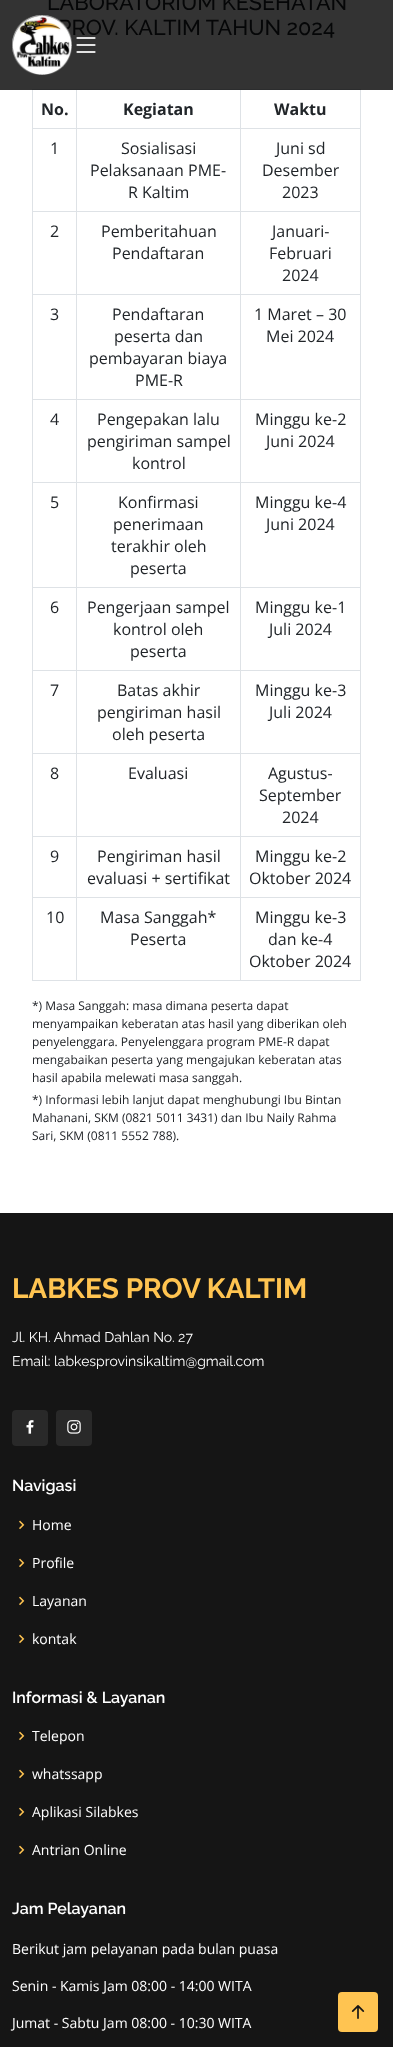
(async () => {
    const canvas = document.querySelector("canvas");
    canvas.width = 393;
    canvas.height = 2047;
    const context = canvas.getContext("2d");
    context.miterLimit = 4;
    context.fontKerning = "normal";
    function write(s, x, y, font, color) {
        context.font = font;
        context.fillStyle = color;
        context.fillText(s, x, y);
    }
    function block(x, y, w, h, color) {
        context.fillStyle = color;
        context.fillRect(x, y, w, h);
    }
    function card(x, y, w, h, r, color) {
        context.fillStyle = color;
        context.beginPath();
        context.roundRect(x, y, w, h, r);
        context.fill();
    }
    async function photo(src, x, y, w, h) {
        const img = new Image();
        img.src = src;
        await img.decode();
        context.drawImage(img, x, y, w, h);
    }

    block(0, 0, 393, 2047, "rgb(255, 255, 255)");
    block(0, 0, 393, 90, "rgb(51, 51, 51)");
    write("LABORATORIUM KESEHATAN", 47, 10, "500 21.6px Raleway", "rgb(5, 6, 7)");
    write("PROV. KALTIM TAHUN 2024", 58, 35, "500 21.6px Raleway", "rgb(5, 6, 7)");
    block(32, 89, 329, 1, "rgb(44, 45, 46)");
    block(32, 128, 329, 1, "rgb(222, 226, 230)");
    block(32, 211, 329, 1, "rgb(222, 226, 230)");
    block(32, 294, 329, 1, "rgb(222, 226, 230)");
    block(32, 399, 329, 1, "rgb(222, 226, 230)");
    block(32, 482, 329, 1, "rgb(222, 226, 230)");
    block(32, 587, 329, 1, "rgb(222, 226, 230)");
    block(32, 670, 329, 1, "rgb(222, 226, 230)");
    block(32, 753, 329, 1, "rgb(222, 226, 230)");
    block(32, 836, 329, 1, "rgb(222, 226, 230)");
    block(32, 897, 329, 1, "rgb(222, 226, 230)");
    block(32, 980, 329, 1, "rgb(222, 226, 230)");
    block(32, 89, 1, 892, "rgb(222, 226, 230)");
    block(32, 89, 1, 1, "rgb(44, 45, 46)");
    write("No.", 41, 115, "bold 16px Open Sans", "rgb(33, 37, 41)");
    block(76, 89, 1, 892, "rgb(222, 226, 230)");
    block(76, 89, 1, 1, "rgb(44, 45, 46)");
    write("Kegiatan", 123, 115, "bold 16px Open Sans", "rgb(33, 37, 41)");
    block(360, 89, 1, 892, "rgb(222, 226, 230)");
    block(360, 89, 1, 1, "rgb(44, 45, 46)");
    block(240, 89, 1, 892, "rgb(222, 226, 230)");
    block(240, 89, 1, 1, "rgb(44, 45, 46)");
    write("Waktu", 274, 115, "bold 16px Open Sans", "rgb(33, 37, 41)");
    write("1", 50, 154, "16px Open Sans", "rgb(33, 37, 41)");
    write("Sosialisasi", 121, 154, "16px Open Sans", "rgb(33, 37, 41)");
    write("Pelaksanaan PME-", 90, 176, "16px Open Sans", "rgb(33, 37, 41)");
    write("R Kaltim", 128, 198, "16px Open Sans", "rgb(33, 37, 41)");
    write("Juni sd", 276, 154, "16px Open Sans", "rgb(33, 37, 41)");
    write("Desember", 262, 176, "16px Open Sans", "rgb(33, 37, 41)");
    write("2023", 282, 198, "16px Open Sans", "rgb(33, 37, 41)");
    write("2", 50, 237, "16px Open Sans", "rgb(33, 37, 41)");
    write("Pemberitahuan", 101, 237, "16px Open Sans", "rgb(33, 37, 41)");
    write("Pendaftaran", 112, 259, "16px Open Sans", "rgb(33, 37, 41)");
    write("Januari-", 272, 237, "16px Open Sans", "rgb(33, 37, 41)");
    write("Februari", 269, 259, "16px Open Sans", "rgb(33, 37, 41)");
    write("2024", 282, 281, "16px Open Sans", "rgb(33, 37, 41)");
    write("3", 50, 320, "16px Open Sans", "rgb(33, 37, 41)");
    write("Pendaftaran", 112, 320, "16px Open Sans", "rgb(33, 37, 41)");
    write("peserta dan", 114, 342, "16px Open Sans", "rgb(33, 37, 41)");
    write("pembayaran biaya", 89, 364, "16px Open Sans", "rgb(33, 37, 41)");
    write("PME-R", 135, 386, "16px Open Sans", "rgb(33, 37, 41)");
    write("1 Maret – 30", 254, 320, "16px Open Sans", "rgb(33, 37, 41)");
    write("Mei 2024", 266, 342, "16px Open Sans", "rgb(33, 37, 41)");
    write("4", 50, 425, "16px Open Sans", "rgb(33, 37, 41)");
    write("Pengepakan lalu", 97, 425, "16px Open Sans", "rgb(33, 37, 41)");
    write("pengiriman sampel", 87, 447, "16px Open Sans", "rgb(33, 37, 41)");
    write("kontrol", 132, 469, "16px Open Sans", "rgb(33, 37, 41)");
    write("Minggu ke-2", 255, 425, "16px Open Sans", "rgb(33, 37, 41)");
    write("Juni 2024", 266, 447, "16px Open Sans", "rgb(33, 37, 41)");
    write("5", 50, 508, "16px Open Sans", "rgb(33, 37, 41)");
    write("Konfirmasi", 118, 508, "16px Open Sans", "rgb(33, 37, 41)");
    write("penerimaan", 113, 530, "16px Open Sans", "rgb(33, 37, 41)");
    write("terakhir oleh", 111, 552, "16px Open Sans", "rgb(33, 37, 41)");
    write("peserta", 130, 574, "16px Open Sans", "rgb(33, 37, 41)");
    write("Minggu ke-4", 255, 508, "16px Open Sans", "rgb(33, 37, 41)");
    write("Juni 2024", 266, 530, "16px Open Sans", "rgb(33, 37, 41)");
    write("6", 50, 613, "16px Open Sans", "rgb(33, 37, 41)");
    write("Pengerjaan sampel", 87, 613, "16px Open Sans", "rgb(33, 37, 41)");
    write("kontrol oleh", 113, 635, "16px Open Sans", "rgb(33, 37, 41)");
    write("peserta", 130, 657, "16px Open Sans", "rgb(33, 37, 41)");
    write("Minggu ke-1", 255, 613, "16px Open Sans", "rgb(33, 37, 41)");
    write("Juli 2024", 269, 635, "16px Open Sans", "rgb(33, 37, 41)");
    write("7", 50, 696, "16px Open Sans", "rgb(33, 37, 41)");
    write("Batas akhir", 117, 696, "16px Open Sans", "rgb(33, 37, 41)");
    write("pengiriman hasil", 97, 718, "16px Open Sans", "rgb(33, 37, 41)");
    write("oleh peserta", 112, 740, "16px Open Sans", "rgb(33, 37, 41)");
    write("Minggu ke-3", 255, 696, "16px Open Sans", "rgb(33, 37, 41)");
    write("Juli 2024", 269, 718, "16px Open Sans", "rgb(33, 37, 41)");
    write("8", 50, 779, "16px Open Sans", "rgb(33, 37, 41)");
    write("Evaluasi", 128, 779, "16px Open Sans", "rgb(33, 37, 41)");
    write("Agustus-", 268, 779, "16px Open Sans", "rgb(33, 37, 41)");
    write("September", 259, 801, "16px Open Sans", "rgb(33, 37, 41)");
    write("2024", 282, 823, "16px Open Sans", "rgb(33, 37, 41)");
    write("9", 50, 862, "16px Open Sans", "rgb(33, 37, 41)");
    write("Pengiriman hasil", 97, 862, "16px Open Sans", "rgb(33, 37, 41)");
    write("evaluasi + sertifikat", 87, 884, "16px Open Sans", "rgb(33, 37, 41)");
    write("Minggu ke-2", 255, 862, "16px Open Sans", "rgb(33, 37, 41)");
    write("Oktober 2024", 249, 884, "16px Open Sans", "rgb(33, 37, 41)");
    write("10", 46, 923, "16px Open Sans", "rgb(33, 37, 41)");
    write("Masa Sanggah*", 100, 923, "16px Open Sans", "rgb(33, 37, 41)");
    write("Peserta", 130, 945, "16px Open Sans", "rgb(33, 37, 41)");
    write("Minggu ke-3", 255, 923, "16px Open Sans", "rgb(33, 37, 41)");
    write("dan ke-4", 268, 945, "16px Open Sans", "rgb(33, 37, 41)");
    write("Oktober 2024", 249, 967, "16px Open Sans", "rgb(33, 37, 41)");
    write("*) Masa Sanggah: masa dimana peserta dapat", 32, 1010, "12px Open Sans", "rgb(27, 30, 35)");
    write("menyampaikan keberatan atas hasil yang diberikan oleh", 32, 1028, "12px Open Sans", "rgb(27, 30, 35)");
    write("penyelenggara. Penyelenggara program PME-R dapat", 32, 1046, "12px Open Sans", "rgb(27, 30, 35)");
    write("mengabaikan peserta yang mengajukan keberatan atas", 32, 1064, "12px Open Sans", "rgb(27, 30, 35)");
    write("hasil apabila melewati masa sanggah.", 32, 1082, "12px Open Sans", "rgb(27, 30, 35)");
    write("*) Informasi lebih lanjut dapat menghubungi Ibu Bintan", 32, 1104, "12px Open Sans", "rgb(27, 30, 35)");
    write("Mahanani, SKM (0821 5011 3431) dan Ibu Naily Rahma", 32, 1122, "12px Open Sans", "rgb(27, 30, 35)");
    write("Sari, SKM (0811 5552 788).", 32, 1140, "12px Open Sans", "rgb(27, 30, 35)");
    await photo("media/1.png", 12, 15, 60, 60);
    await photo("media/2.png", 76, 37, 20, 16);
    block(0, 1213, 393, 834, "rgb(21, 21, 21)");
    write("LABKES PROV KALTIM", 12, 1298, "bold 28px Raleway", "rgb(255, 196, 81)");
    write("Jl. KH. Ahmad Dahlan No. 27", 12, 1342, "14px Raleway", "rgb(255, 255, 255)");
    write("Email: labkesprovinsikaltim@gmail.com", 12, 1366, "14px Raleway", "rgb(255, 255, 255)");
    card(12, 1410, 36, 36, 4, "rgb(41, 41, 41)");
    await photo("media/3.png", 26, 1420, 8, 14);
    card(56, 1410, 36, 36, 4, "rgb(41, 41, 41)");
    await photo("media/4.png", 67, 1420, 14, 14);
    write("Navigasi", 12, 1491, "600 16px Raleway", "rgb(255, 255, 255)");
    await photo("media/5.png", 19, 1520, 6, 10);
    write("Home", 32, 1530, "14px Open Sans", "rgb(255, 255, 255)");
    await photo("media/5.png", 19, 1558, 6, 10);
    write("Profile", 32, 1568, "14px Open Sans", "rgb(255, 255, 255)");
    await photo("media/5.png", 19, 1596, 6, 10);
    write("Layanan", 32, 1606, "14px Open Sans", "rgb(255, 255, 255)");
    await photo("media/5.png", 19, 1634, 6, 10);
    write("kontak", 32, 1644, "14px Open Sans", "rgb(255, 255, 255)");
    write("Informasi & Layanan", 12, 1703, "600 16px Raleway", "rgb(255, 255, 255)");
    await photo("media/5.png", 19, 1731, 6, 10);
    write("Telepon", 32, 1741, "14px Open Sans", "rgb(255, 255, 255)");
    await photo("media/5.png", 19, 1769, 6, 10);
    write("whatssapp", 32, 1779, "14px Open Sans", "rgb(255, 255, 255)");
    await photo("media/5.png", 19, 1807, 6, 10);
    write("Aplikasi Silabkes", 32, 1817, "14px Open Sans", "rgb(255, 255, 255)");
    await photo("media/5.png", 19, 1845, 6, 10);
    write("Antrian Online", 32, 1855, "14px Open Sans", "rgb(255, 255, 255)");
    write("Jam Pelayanan", 12, 1914, "600 16px Raleway", "rgb(255, 255, 255)");
    write("Berikut jam pelayanan pada bulan puasa", 12, 1954, "14px Open Sans", "rgb(255, 255, 255)");
    write("Senin - Kamis Jam 08:00 - 14:00 WITA", 12, 1991, "14px Open Sans", "rgb(255, 255, 255)");
    write("Jumat - Sabtu Jam 08:00 - 10:30 WITA", 12, 2028, "14px Open Sans", "rgb(255, 255, 255)");
    card(338, 1992, 40, 40, 4, "rgb(255, 196, 81)");
    await photo("media/6.png", 351, 2005, 14, 14);
})();
